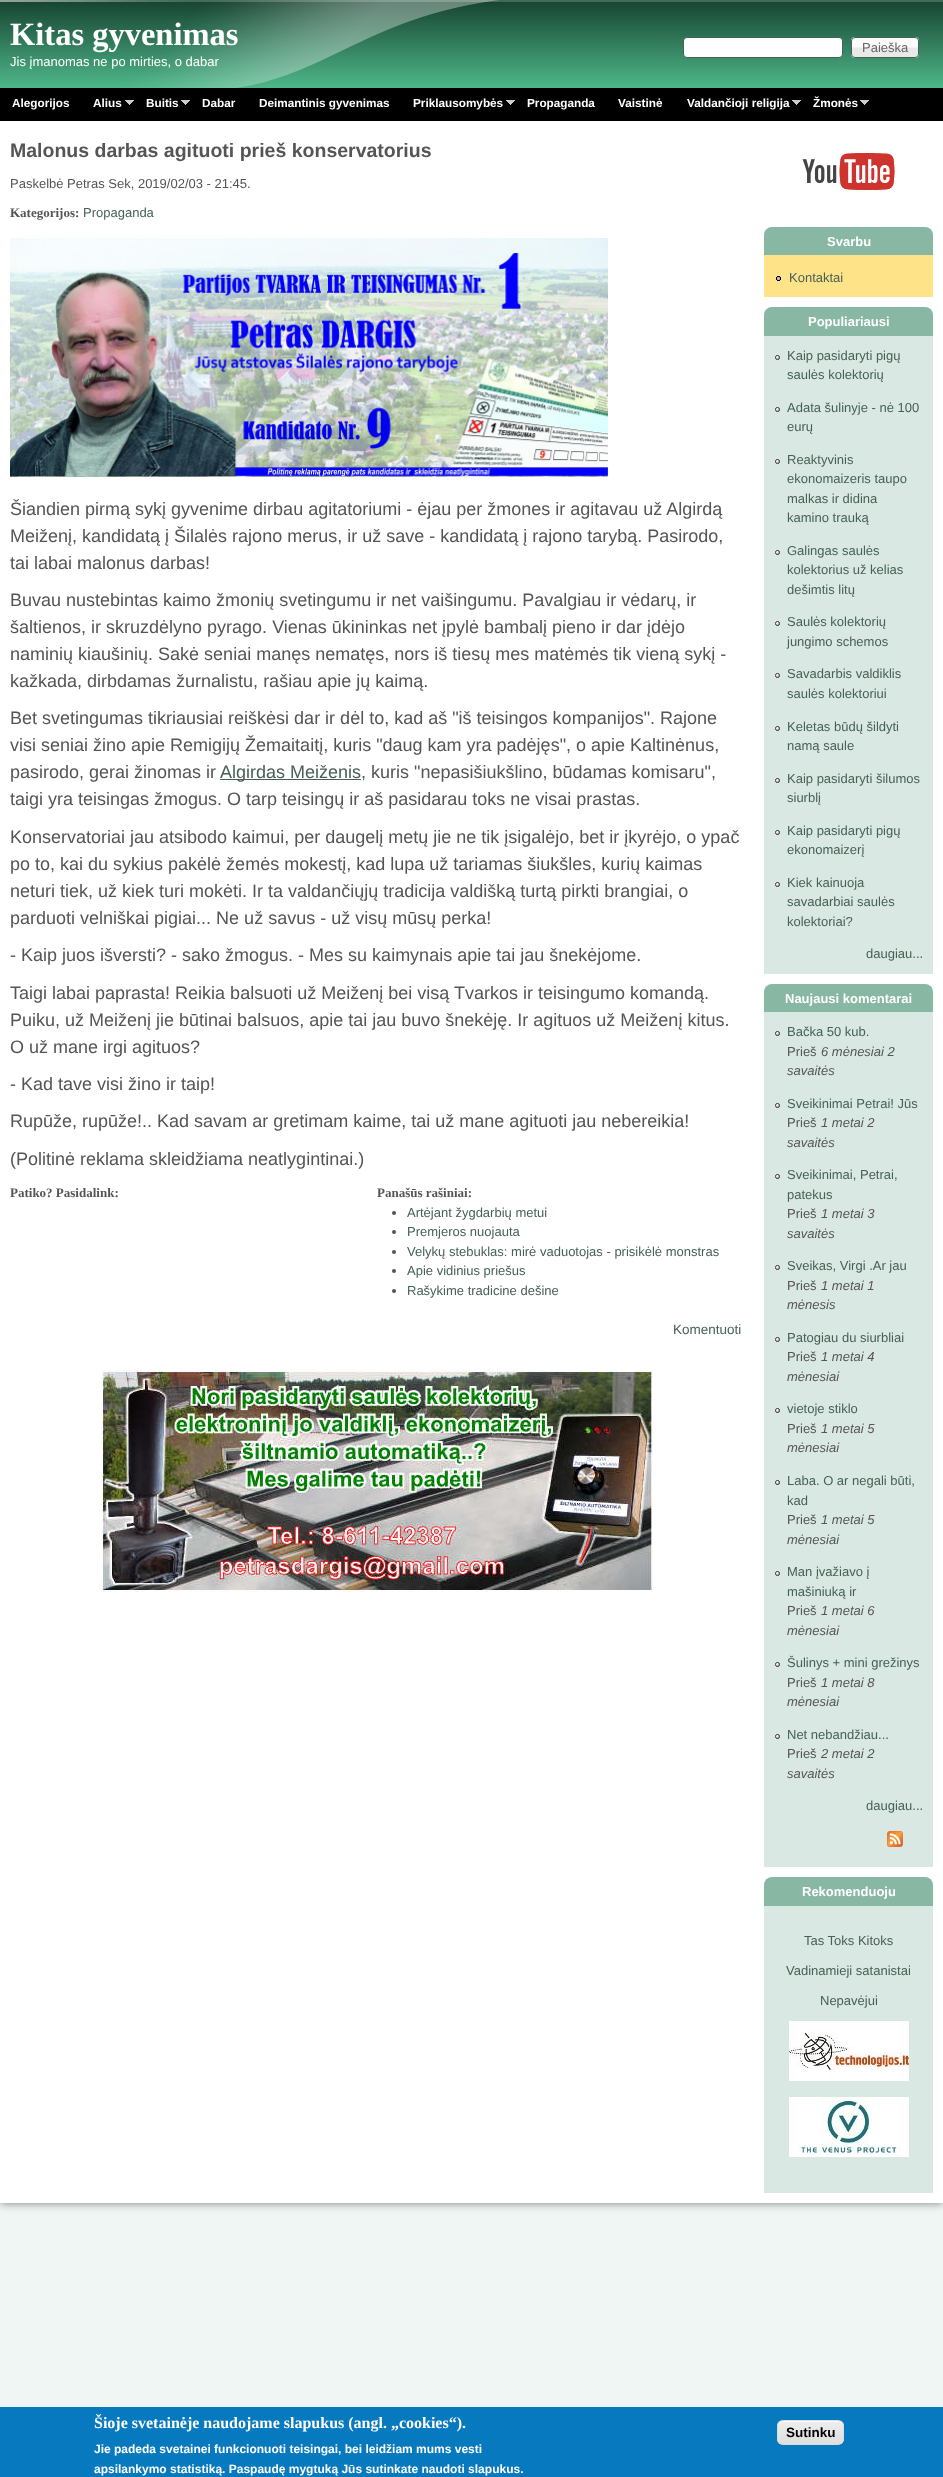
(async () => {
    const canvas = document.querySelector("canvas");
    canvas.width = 943;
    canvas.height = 2477;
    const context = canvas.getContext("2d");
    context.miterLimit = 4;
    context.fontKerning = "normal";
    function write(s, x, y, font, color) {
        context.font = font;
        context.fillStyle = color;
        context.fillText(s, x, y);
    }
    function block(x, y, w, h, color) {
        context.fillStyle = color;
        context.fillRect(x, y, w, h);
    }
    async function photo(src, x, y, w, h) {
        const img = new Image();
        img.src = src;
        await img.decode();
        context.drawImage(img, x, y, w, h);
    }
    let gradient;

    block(0, 0, 943, 2477, "rgb(239, 246, 243)");
    context.fillStyle = "rgba(76, 76, 76, 0.7)";
    context.filter = "blur(5px)";
    context.beginPath();
    context.rect(0, 0, 943, 2203);
    context.fill();
    context.filter = "none";
    block(0, 121, 943, 2082, "rgb(255, 255, 255)");
    await photo("media/1.png", 499, 0, 444, 88);
    await photo("media/2.png", 0, 0, 499, 88);
    write("Kitas gyvenimas", 10, 45, "bold 32.5px Liberation Serif", "rgb(255, 255, 255)");
    write("Jis įmanomas ne po mirties, o dabar", 10, 66, "13px Liberation Sans", "rgb(255, 255, 255)");
    context.beginPath();
    context.roundRect(683.5, 37.5, 159, 20, 3.5);
    context.fill();
    context.strokeStyle = "rgb(72, 97, 86)";
    context.stroke();
    await photo("media/3.png", 851, 37, 68, 21);
    context.beginPath();
    context.roundRect(851.5, 37.5, 67, 20, 3.5);
    context.stroke();
    write("Paieška", 862, 52, "13px Liberation Sans", "rgb(102, 102, 102)");
    block(0, 88, 943, 33, "rgb(0, 0, 0)");
    write("Alegorijos", 12, 107, "bold 11.75px Liberation Sans", "rgb(255, 255, 255)");
    write("Alius", 93, 107, "bold 11.75px Liberation Sans", "rgb(255, 255, 255)");
    await photo("media/4.png", 125, 100, 9, 5);
    write("Buitis", 146, 107, "bold 11.75px Liberation Sans", "rgb(255, 255, 255)");
    await photo("media/4.png", 181, 100, 9, 5);
    write("Dabar", 202, 107, "bold 11.75px Liberation Sans", "rgb(255, 255, 255)");
    write("Deimantinis gyvenimas", 259, 107, "bold 11.75px Liberation Sans", "rgb(255, 255, 255)");
    write("Priklausomybės", 413, 107, "bold 11.75px Liberation Sans", "rgb(255, 255, 255)");
    await photo("media/4.png", 506, 100, 9, 5);
    write("Propaganda", 527, 107, "bold 11.75px Liberation Sans", "rgb(255, 255, 255)");
    write("Vaistinė", 618, 107, "bold 11.75px Liberation Sans", "rgb(255, 255, 255)");
    write("Valdančioji religija", 687, 107, "bold 11.75px Liberation Sans", "rgb(255, 255, 255)");
    await photo("media/4.png", 792, 100, 9, 5);
    write("Žmonės", 813, 107, "bold 11.75px Liberation Sans", "rgb(255, 255, 255)");
    await photo("media/4.png", 860, 100, 9, 5);
    write("Malonus darbas agituoti prieš konservatorius", 10, 157, "bold 19.5px Liberation Sans", "rgb(85, 85, 85)");
    write("Paskelbė Petras Sek, 2019/02/03 - 21:45.", 10, 188, "13px Liberation Sans", "rgb(85, 85, 85)");
    write("Kategorijos:", 10, 217, "bold 13px Liberation Serif", "rgb(85, 85, 85)");
    write("Propaganda", 83, 217, "13px Liberation Sans", "rgb(72, 97, 86)");
    await photo("media/5.png", 10, 238, 598, 239);
    write("Šiandien pirmą sykį gyvenime dirbau agitatoriumi - ėjau per žmones ir agitavau už Algirdą", 10, 515, "18px Liberation Sans", "rgb(85, 85, 85)");
    write("Meiženį, kandidatą į Šilalės rajono merus, ir už save - kandidatą į rajono tarybą. Pasirodo,", 10, 542, "18px Liberation Sans", "rgb(85, 85, 85)");
    write("tai labai malonus darbas!", 10, 569, "18px Liberation Sans", "rgb(85, 85, 85)");
    write("Buvau nustebintas kaimo žmonių svetingumu ir net vaišingumu. Pavalgiau ir vėdarų, ir", 10, 606, "18px Liberation Sans", "rgb(85, 85, 85)");
    write("šaltienos, ir skruzdėlyno pyrago. Vienas ūkininkas net įpylė bambalį pieno ir dar įdėjo", 10, 633, "18px Liberation Sans", "rgb(85, 85, 85)");
    write("naminių kiaušinių. Sakė seniai manęs nematęs, nors iš tiesų mes matėmės tik vieną sykį -", 10, 660, "18px Liberation Sans", "rgb(85, 85, 85)");
    write("kažkada, dirbdamas žurnalistu, rašiau apie jų kaimą.", 10, 687, "18px Liberation Sans", "rgb(85, 85, 85)");
    write("Bet svetingumas tikriausiai reiškėsi dar ir dėl to, kad aš \"iš teisingos kompanijos\". Rajone", 10, 724, "18px Liberation Sans", "rgb(85, 85, 85)");
    write("visi seniai žino apie Remigijų Žemaitaitį, kuris \"daug kam yra padėjęs\", o apie Kaltinėnus,", 10, 751, "18px Liberation Sans", "rgb(85, 85, 85)");
    write("pasirodo, gerai žinomas ir", 10, 778, "18px Liberation Sans", "rgb(85, 85, 85)");
    block(220, 779, 141, 1, "rgb(72, 97, 86)");
    write("Algirdas Meiženis", 220, 778, "18px Liberation Sans", "rgb(72, 97, 86)");
    write(", kuris \"nepasišiukšlino, būdamas komisaru\",", 361, 778, "18px Liberation Sans", "rgb(85, 85, 85)");
    write("taigi yra teisingas žmogus. O tarp teisingų ir aš pasidarau toks ne visai prastas.", 10, 805, "18px Liberation Sans", "rgb(85, 85, 85)");
    write("Konservatoriai jau atsibodo kaimui, per daugelį metų jie ne tik įsigalėjo, bet ir įkyrėjo, o ypač", 10, 843, "18px Liberation Sans", "rgb(85, 85, 85)");
    write("po to, kai du sykius pakėlė žemės mokestį, kad lupa už tariamas šiukšles, kurių kaimas", 10, 870, "18px Liberation Sans", "rgb(85, 85, 85)");
    write("neturi tiek, už kiek turi mokėti. Ir ta valdančiųjų tradicija valdišką turtą pirkti brangiai, o", 10, 897, "18px Liberation Sans", "rgb(85, 85, 85)");
    write("parduoti velniškai pigiai... Ne už savus - už visų mūsų perka!", 10, 924, "18px Liberation Sans", "rgb(85, 85, 85)");
    write("- Kaip juos išversti? - sako žmogus. - Mes su kaimynais apie tai jau šnekėjome.", 10, 961, "18px Liberation Sans", "rgb(85, 85, 85)");
    write("Taigi labai paprasta! Reikia balsuoti už Meiženį bei visą Tvarkos ir teisingumo komandą.", 10, 999, "18px Liberation Sans", "rgb(85, 85, 85)");
    write("Puiku, už Meiženį jie būtinai balsuos, apie tai jau buvo šnekėję. Ir agituos už Meiženį kitus.", 10, 1026, "18px Liberation Sans", "rgb(85, 85, 85)");
    write("O už mane irgi agituos?", 10, 1053, "18px Liberation Sans", "rgb(85, 85, 85)");
    write("- Kad tave visi žino ir taip!", 10, 1090, "18px Liberation Sans", "rgb(85, 85, 85)");
    write("Rupūže, rupūže!.. Kad savam ar gretimam kaime, tai už mane agituoti jau nebereikia!", 10, 1127, "18px Liberation Sans", "rgb(85, 85, 85)");
    write("(Politinė reklama skleidžiama neatlygintinai.)", 10, 1165, "18px Liberation Sans", "rgb(85, 85, 85)");
    write("Patiko? Pasidalink:", 10, 1197, "bold 13px Liberation Serif", "rgb(85, 85, 85)");
    write("Panašūs rašiniai:", 377, 1197, "bold 13px Liberation Serif", "rgb(85, 85, 85)");
    context.beginPath();
    context.arc(394, 1213, 2, 0, Math.PI * 2);
    context.fill();
    write("Artėjant žygdarbių metui", 407, 1217, "13px Liberation Sans", "rgb(72, 97, 86)");
    context.fillStyle = "rgb(85, 85, 85)";
    context.beginPath();
    context.arc(394, 1232, 2, 0, Math.PI * 2);
    context.fill();
    write("Premjeros nuojauta", 407, 1236, "13px Liberation Sans", "rgb(72, 97, 86)");
    context.fillStyle = "rgb(85, 85, 85)";
    context.beginPath();
    context.arc(394, 1252, 2, 0, Math.PI * 2);
    context.fill();
    write("Velykų stebuklas: mirė vaduotojas - prisikėlė monstras", 407, 1256, "13px Liberation Sans", "rgb(72, 97, 86)");
    context.fillStyle = "rgb(85, 85, 85)";
    context.beginPath();
    context.arc(394, 1271, 2, 0, Math.PI * 2);
    context.fill();
    write("Apie vidinius priešus", 407, 1275, "13px Liberation Sans", "rgb(72, 97, 86)");
    context.fillStyle = "rgb(85, 85, 85)";
    context.beginPath();
    context.arc(394, 1291, 2, 0, Math.PI * 2);
    context.fill();
    write("Rašykime tradicine dešine", 407, 1295, "13px Liberation Sans", "rgb(72, 97, 86)");
    write("Komentuoti", 673, 1334, "13.5px Liberation Sans", "rgb(72, 97, 86)");
    await photo("media/6.png", 101, 1370, 552, 222);
    await photo("media/7.png", 802, 153, 93, 37);
    context.fillStyle = "rgb(136, 183, 163)";
    context.beginPath();
    context.roundRect(764, 227, 169, 28, [8, 8, 0, 0]);
    context.fill();
    write("Svarbu", 827, 246, "bold 13px Liberation Sans", "rgb(255, 255, 255)");
    block(764, 255, 169, 42, "rgb(255, 227, 137)");
    await photo("media/8.png", 776, 276, 5, 5);
    write("Kontaktai", 789, 282, "13px Liberation Sans", "rgb(72, 97, 86)");
    context.fillStyle = "rgb(136, 183, 163)";
    context.beginPath();
    context.roundRect(764, 307, 169, 29, [8, 8, 0, 0]);
    context.fill();
    write("Populiariausi", 808, 326, "bold 13px Liberation Sans", "rgb(255, 255, 255)");
    block(764, 336, 169, 638, "rgb(217, 232, 226)");
    await photo("media/9.png", 775, 355, 5, 5);
    write("Kaip pasidaryti pigų", 787, 360, "13px Liberation Sans", "rgb(72, 97, 86)");
    write("saulės kolektorių", 787, 379, "13px Liberation Sans", "rgb(72, 97, 86)");
    await photo("media/9.png", 775, 407, 5, 5);
    write("Adata šulinyje - nė 100", 787, 412, "13px Liberation Sans", "rgb(72, 97, 86)");
    write("eurų", 787, 431, "13px Liberation Sans", "rgb(72, 97, 86)");
    await photo("media/9.png", 775, 459, 5, 5);
    write("Reaktyvinis", 787, 464, "13px Liberation Sans", "rgb(72, 97, 86)");
    write("ekonomaizeris taupo", 787, 483, "13px Liberation Sans", "rgb(72, 97, 86)");
    write("malkas ir didina", 787, 503, "13px Liberation Sans", "rgb(72, 97, 86)");
    write("kamino trauką", 787, 522, "13px Liberation Sans", "rgb(72, 97, 86)");
    await photo("media/9.png", 775, 550, 5, 5);
    write("Galingas saulės", 787, 555, "13px Liberation Sans", "rgb(72, 97, 86)");
    write("kolektorius už kelias", 787, 574, "13px Liberation Sans", "rgb(72, 97, 86)");
    write("dešimtis litų", 787, 594, "13px Liberation Sans", "rgb(72, 97, 86)");
    await photo("media/9.png", 775, 621, 5, 5);
    write("Saulės kolektorių", 787, 626, "13px Liberation Sans", "rgb(72, 97, 86)");
    write("jungimo schemos", 787, 646, "13px Liberation Sans", "rgb(72, 97, 86)");
    await photo("media/9.png", 775, 673, 5, 5);
    write("Savadarbis valdiklis", 787, 678, "13px Liberation Sans", "rgb(72, 97, 86)");
    write("saulės kolektoriui", 787, 698, "13px Liberation Sans", "rgb(72, 97, 86)");
    await photo("media/9.png", 775, 726, 5, 5);
    write("Keletas būdų šildyti", 787, 731, "13px Liberation Sans", "rgb(72, 97, 86)");
    write("namą saule", 787, 750, "13px Liberation Sans", "rgb(72, 97, 86)");
    await photo("media/9.png", 775, 778, 5, 5);
    write("Kaip pasidaryti šilumos", 787, 783, "13px Liberation Sans", "rgb(72, 97, 86)");
    write("siurblį", 787, 802, "13px Liberation Sans", "rgb(72, 97, 86)");
    await photo("media/9.png", 775, 830, 5, 5);
    write("Kaip pasidaryti pigų", 787, 835, "13px Liberation Sans", "rgb(72, 97, 86)");
    write("ekonomaizerį", 787, 854, "13px Liberation Sans", "rgb(72, 97, 86)");
    await photo("media/9.png", 775, 882, 5, 5);
    write("Kiek kainuoja", 787, 887, "13px Liberation Sans", "rgb(72, 97, 86)");
    write("savadarbiai saulės", 787, 906, "13px Liberation Sans", "rgb(72, 97, 86)");
    write("kolektoriai?", 787, 926, "13px Liberation Sans", "rgb(72, 97, 86)");
    write("daugiau...", 866, 958, "13px Liberation Sans", "rgb(72, 97, 86)");
    context.fillStyle = "rgb(136, 183, 163)";
    context.beginPath();
    context.roundRect(764, 984, 169, 28, [8, 8, 0, 0]);
    context.fill();
    write("Naujausi komentarai", 785, 1003, "bold 13px Liberation Sans", "rgb(255, 255, 255)");
    block(764, 1012, 169, 855, "rgb(217, 232, 226)");
    await photo("media/9.png", 775, 1031, 5, 5);
    write("Bačka 50 kub.", 787, 1036, "13px Liberation Sans", "rgb(72, 97, 86)");
    write("Prieš", 787, 1056, "13px Liberation Sans", "rgb(85, 85, 85)");
    write("6 mėnesiai 2", 821, 1056, "italic 13px Liberation Sans", "rgb(85, 85, 85)");
    write("savaitės", 787, 1075, "italic 13px Liberation Sans", "rgb(85, 85, 85)");
    await photo("media/9.png", 775, 1103, 5, 5);
    write("Sveikinimai Petrai! Jūs", 787, 1108, "13px Liberation Sans", "rgb(72, 97, 86)");
    write("Prieš", 787, 1127, "13px Liberation Sans", "rgb(85, 85, 85)");
    write("1 metai 2", 821, 1127, "italic 13px Liberation Sans", "rgb(85, 85, 85)");
    write("savaitės", 787, 1147, "italic 13px Liberation Sans", "rgb(85, 85, 85)");
    await photo("media/9.png", 775, 1174, 5, 5);
    write("Sveikinimai, Petrai,", 787, 1179, "13px Liberation Sans", "rgb(72, 97, 86)");
    write("patekus", 787, 1199, "13px Liberation Sans", "rgb(72, 97, 86)");
    write("Prieš", 787, 1218, "13px Liberation Sans", "rgb(85, 85, 85)");
    write("1 metai 3", 821, 1218, "italic 13px Liberation Sans", "rgb(85, 85, 85)");
    write("savaitės", 787, 1238, "italic 13px Liberation Sans", "rgb(85, 85, 85)");
    await photo("media/9.png", 775, 1265, 5, 5);
    write("Sveikas, Virgi .Ar jau", 787, 1270, "13px Liberation Sans", "rgb(72, 97, 86)");
    write("Prieš", 787, 1290, "13px Liberation Sans", "rgb(85, 85, 85)");
    write("1 metai 1", 821, 1290, "italic 13px Liberation Sans", "rgb(85, 85, 85)");
    write("mėnesis", 787, 1309, "italic 13px Liberation Sans", "rgb(85, 85, 85)");
    await photo("media/9.png", 775, 1337, 5, 5);
    write("Patogiau du siurbliai", 787, 1342, "13px Liberation Sans", "rgb(72, 97, 86)");
    write("Prieš", 787, 1361, "13px Liberation Sans", "rgb(85, 85, 85)");
    write("1 metai 4", 821, 1361, "italic 13px Liberation Sans", "rgb(85, 85, 85)");
    write("mėnesiai", 787, 1381, "italic 13px Liberation Sans", "rgb(85, 85, 85)");
    await photo("media/9.png", 775, 1408, 5, 5);
    write("vietoje stiklo", 787, 1413, "13px Liberation Sans", "rgb(72, 97, 86)");
    write("Prieš", 787, 1433, "13px Liberation Sans", "rgb(85, 85, 85)");
    write("1 metai 5", 821, 1433, "italic 13px Liberation Sans", "rgb(85, 85, 85)");
    write("mėnesiai", 787, 1452, "italic 13px Liberation Sans", "rgb(85, 85, 85)");
    await photo("media/9.png", 775, 1480, 5, 5);
    write("Laba. O ar negali būti,", 787, 1485, "13px Liberation Sans", "rgb(72, 97, 86)");
    write("kad", 787, 1505, "13px Liberation Sans", "rgb(72, 97, 86)");
    write("Prieš", 787, 1524, "13px Liberation Sans", "rgb(85, 85, 85)");
    write("1 metai 5", 821, 1524, "italic 13px Liberation Sans", "rgb(85, 85, 85)");
    write("mėnesiai", 787, 1544, "italic 13px Liberation Sans", "rgb(85, 85, 85)");
    await photo("media/9.png", 775, 1571, 5, 5);
    write("Man įvažiavo į", 787, 1576, "13px Liberation Sans", "rgb(72, 97, 86)");
    write("mašiniuką ir", 787, 1596, "13px Liberation Sans", "rgb(72, 97, 86)");
    write("Prieš", 787, 1615, "13px Liberation Sans", "rgb(85, 85, 85)");
    write("1 metai 6", 821, 1615, "italic 13px Liberation Sans", "rgb(85, 85, 85)");
    write("mėnesiai", 787, 1635, "italic 13px Liberation Sans", "rgb(85, 85, 85)");
    await photo("media/9.png", 775, 1662, 5, 5);
    write("Šulinys + mini grežinys", 787, 1667, "13px Liberation Sans", "rgb(72, 97, 86)");
    write("Prieš", 787, 1687, "13px Liberation Sans", "rgb(85, 85, 85)");
    write("1 metai 8", 821, 1687, "italic 13px Liberation Sans", "rgb(85, 85, 85)");
    write("mėnesiai", 787, 1706, "italic 13px Liberation Sans", "rgb(85, 85, 85)");
    await photo("media/9.png", 775, 1734, 5, 5);
    write("Net nebandžiau...", 787, 1739, "13px Liberation Sans", "rgb(72, 97, 86)");
    write("Prieš", 787, 1758, "13px Liberation Sans", "rgb(85, 85, 85)");
    write("2 metai 2", 821, 1758, "italic 13px Liberation Sans", "rgb(85, 85, 85)");
    write("savaitės", 787, 1778, "italic 13px Liberation Sans", "rgb(85, 85, 85)");
    write("daugiau...", 866, 1810, "13px Liberation Sans", "rgb(72, 97, 86)");
    await photo("media/10.png", 887, 1831, 16, 16);
    context.fillStyle = "rgb(136, 183, 163)";
    context.beginPath();
    context.roundRect(764, 1877, 169, 29, [8, 8, 0, 0]);
    context.fill();
    write("Rekomenduoju", 802, 1896, "bold 13px Liberation Sans", "rgb(255, 255, 255)");
    block(764, 1906, 169, 287, "rgb(217, 232, 226)");
    write("Tas Toks Kitoks", 804, 1945, "13px Liberation Sans", "rgb(72, 97, 86)");
    write("Vadinamieji satanistai", 786, 1975, "13px Liberation Sans", "rgb(72, 97, 86)");
    write("Nepavėjui", 820, 2005, "13px Liberation Sans", "rgb(72, 97, 86)");
    await photo("media/11.png", 789, 2021, 120, 60);
    await photo("media/12.png", 789, 2097, 120, 60);
    block(0, 2407, 943, 70, "rgb(7, 121, 191)");
    write("Šioje svetainėje naudojame slapukus (angl. „cookies“).", 94, 2428, "bold 16px Liberation Serif", "rgb(255, 255, 255)");
    write("Jie padeda svetainei funkcionuoti teisingai, bei leidžiam mums vesti", 94, 2453, "bold 12px Liberation Sans", "rgb(255, 255, 255)");
    write("apsilankymo statistiką. Paspaudę mygtuką Jūs sutinkate naudoti slapukus.", 94, 2473, "bold 12px Liberation Sans", "rgb(255, 255, 255)");
    context.save();
    context.beginPath();
    context.roundRect(777, 2420, 67, 25, 6);
    context.clip();
    gradient = context.createLinearGradient(811, 2421, 811, 2444);
    gradient.addColorStop(0.05, "rgb(237, 237, 237)");
    gradient.addColorStop(1, "rgb(223, 223, 223)");
    context.fillStyle = gradient;
    context.fillRect(777, 2421, 67, 23);
    context.restore();
    context.beginPath();
    context.moveTo(783, 2422);
    context.lineTo(838, 2422);
    context.bezierCurveTo(841, 2422, 843, 2424, 843, 2427);
    context.bezierCurveTo(843, 2419, 835, 2421, 829, 2421);
    context.lineTo(792, 2421);
    context.bezierCurveTo(786, 2421, 778, 2419, 778, 2427);
    context.bezierCurveTo(778, 2424, 780, 2422, 783, 2422);
    context.closePath();
    context.fill();
    context.beginPath();
    context.roundRect(777.5, 2420.5, 66, 24, 5.5);
    context.strokeStyle = "rgb(220, 220, 220)";
    context.stroke();
    write("Sutinku", 786, 2437, "bold 13.5px Liberation Sans", "rgb(0, 0, 0)");
})();
